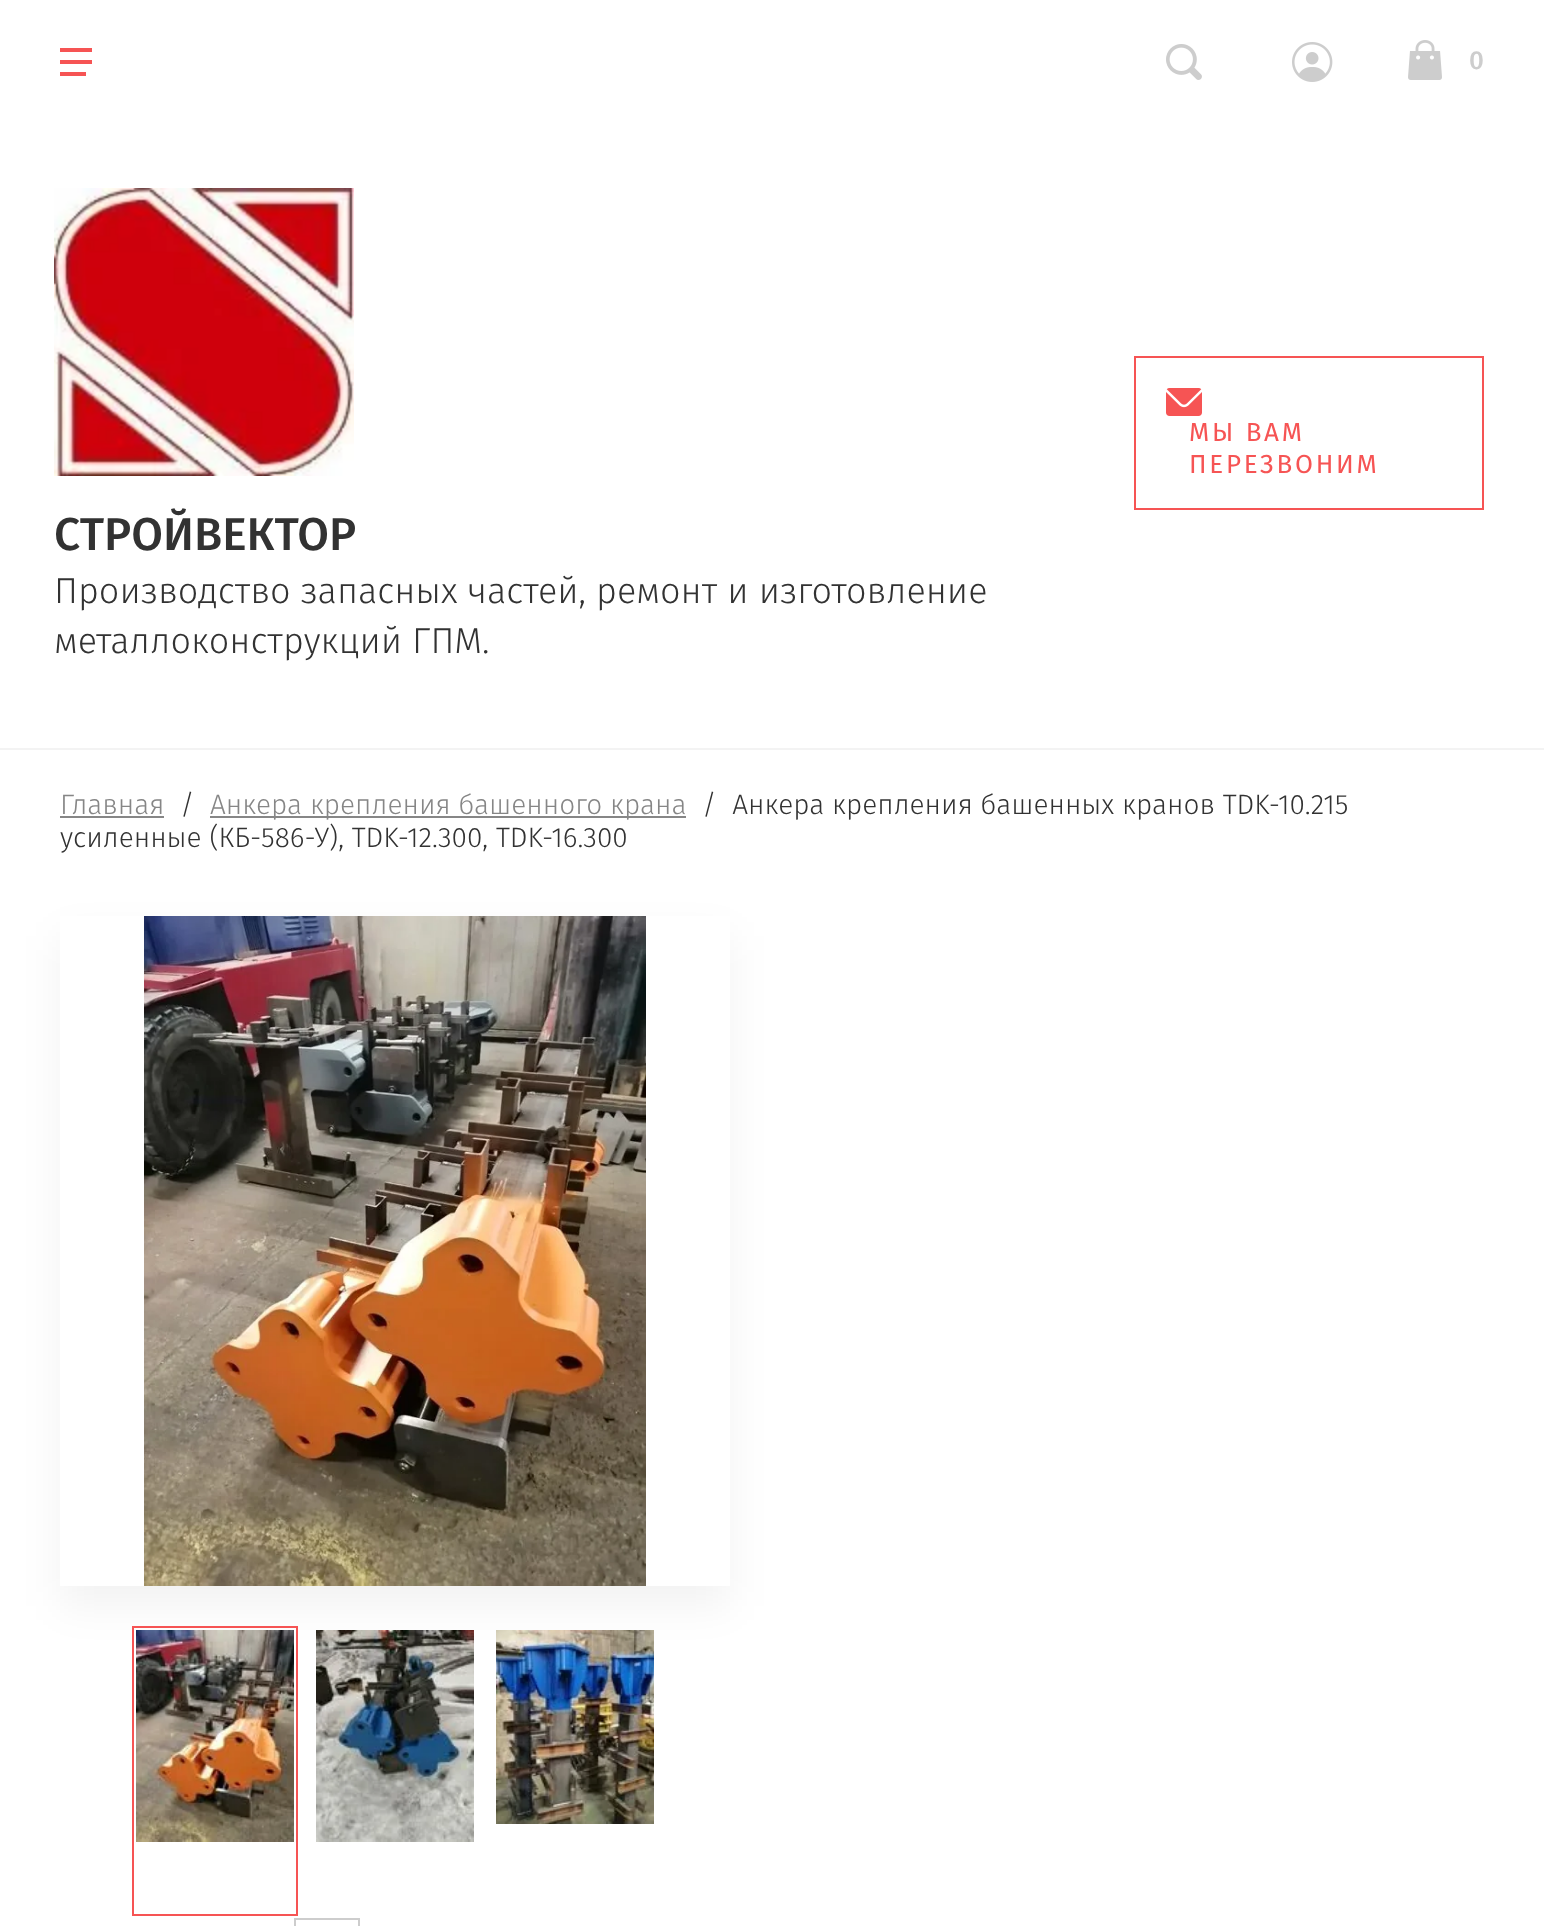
(async () => {
    const canvas = document.querySelector("canvas");
    canvas.width = 1544;
    canvas.height = 1926;
    const context = canvas.getContext("2d");
    context.miterLimit = 4;
    context.fontKerning = "normal";
    function write(s, x, y, font, color) {
        context.font = font;
        context.fillStyle = color;
        context.fillText(s, x, y);
    }
    function block(x, y, w, h, color) {
        context.fillStyle = color;
        context.fillRect(x, y, w, h);
    }
    async function photo(src, x, y, w, h) {
        const img = new Image();
        img.src = src;
        await img.decode();
        context.drawImage(img, x, y, w, h);
    }

    block(0, 0, 1544, 1926, "rgb(255, 255, 255)");
    block(60, 48, 32, 4, "rgb(246, 84, 84)");
    block(60, 60, 32, 4, "rgb(246, 84, 84)");
    block(60, 72, 26, 4, "rgb(246, 84, 84)");
    await photo("media/1.png", 1166, 44, 36, 36);
    await photo("media/2.png", 1292, 42, 41, 40);
    await photo("media/3.png", 1408, 40, 34, 40);
    write("0", 1469, 69, "500 26px Fira Sans", "rgb(205, 205, 205)");
    context.strokeStyle = "rgb(246, 84, 84)";
    context.lineWidth = 2;
    context.strokeRect(1135, 357, 348, 152);
    await photo("media/4.png", 1166, 388, 36, 28);
    context.letterSpacing = "2.75px";
    write("МЫ ВАМ", 1189, 441, "26px Fira Sans", "rgb(246, 84, 84)");
    write("ПЕРЕЗВОНИМ", 1189, 473, "26px Fira Sans", "rgb(246, 84, 84)");
    await photo("media/5.png", 54, 188, 300, 288);
    context.letterSpacing = "0px";
    write("СТРОЙВЕКТОР", 54, 550, "500 46px Fira Sans", "rgb(50, 50, 50)");
    write("Производство запасных частей, ремонт и изготовление", 54, 603, "300 36px Fira Sans", "rgb(50, 50, 50)");
    write("металлоконструкций ГПМ.", 54, 653, "300 36px Fira Sans", "rgb(50, 50, 50)");
    block(0, 748, 1544, 2, "rgb(243, 243, 243)");
    write("Главная", 60, 814, "300 28px Fira Sans", "rgb(134, 134, 134)");
    block(60, 816, 104, 2, "rgb(134, 134, 134)");
    write("/", 180, 814, "300 28px Fira Sans", "rgb(50, 50, 50)");
    block(210, 816, 476, 2, "rgb(134, 134, 134)");
    write("Анкера крепления башенного крана", 210, 814, "300 28px Fira Sans", "rgb(134, 134, 134)");
    write("/  Анкера крепления башенных кранов TDK-10.215", 702, 814, "300 28px Fira Sans", "rgb(50, 50, 50)");
    write("усиленные (КБ-586-У), TDK-12.300, TDK-16.300", 60, 847, "300 28px Fira Sans", "rgb(50, 50, 50)");
    context.save();
    context.beginPath();
    context.moveTo(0, 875);
    context.lineTo(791, 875);
    context.lineTo(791, 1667);
    context.lineTo(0, 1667);
    context.closePath();
    context.moveTo(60, 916);
    context.lineTo(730, 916);
    context.lineTo(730, 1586);
    context.lineTo(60, 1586);
    context.closePath();
    context.clip("evenodd");
    context.fillStyle = "rgba(0, 0, 0, 0.05)";
    context.filter = "blur(20px)";
    context.beginPath();
    context.rect(60, 936, 670, 670);
    context.fill();
    context.filter = "none";
    context.restore();
    await photo("media/6.png", 144, 916, 502, 670);
    context.strokeRect(133, 1627, 164, 288);
    await photo("media/7.png", 136, 1630, 158, 212);
    await photo("media/8.png", 316, 1630, 158, 212);
    await photo("media/9.png", 496, 1630, 158, 194);
    context.strokeStyle = "rgb(205, 205, 205)";
    context.strokeRect(295, 1919, 64, 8);
})();
